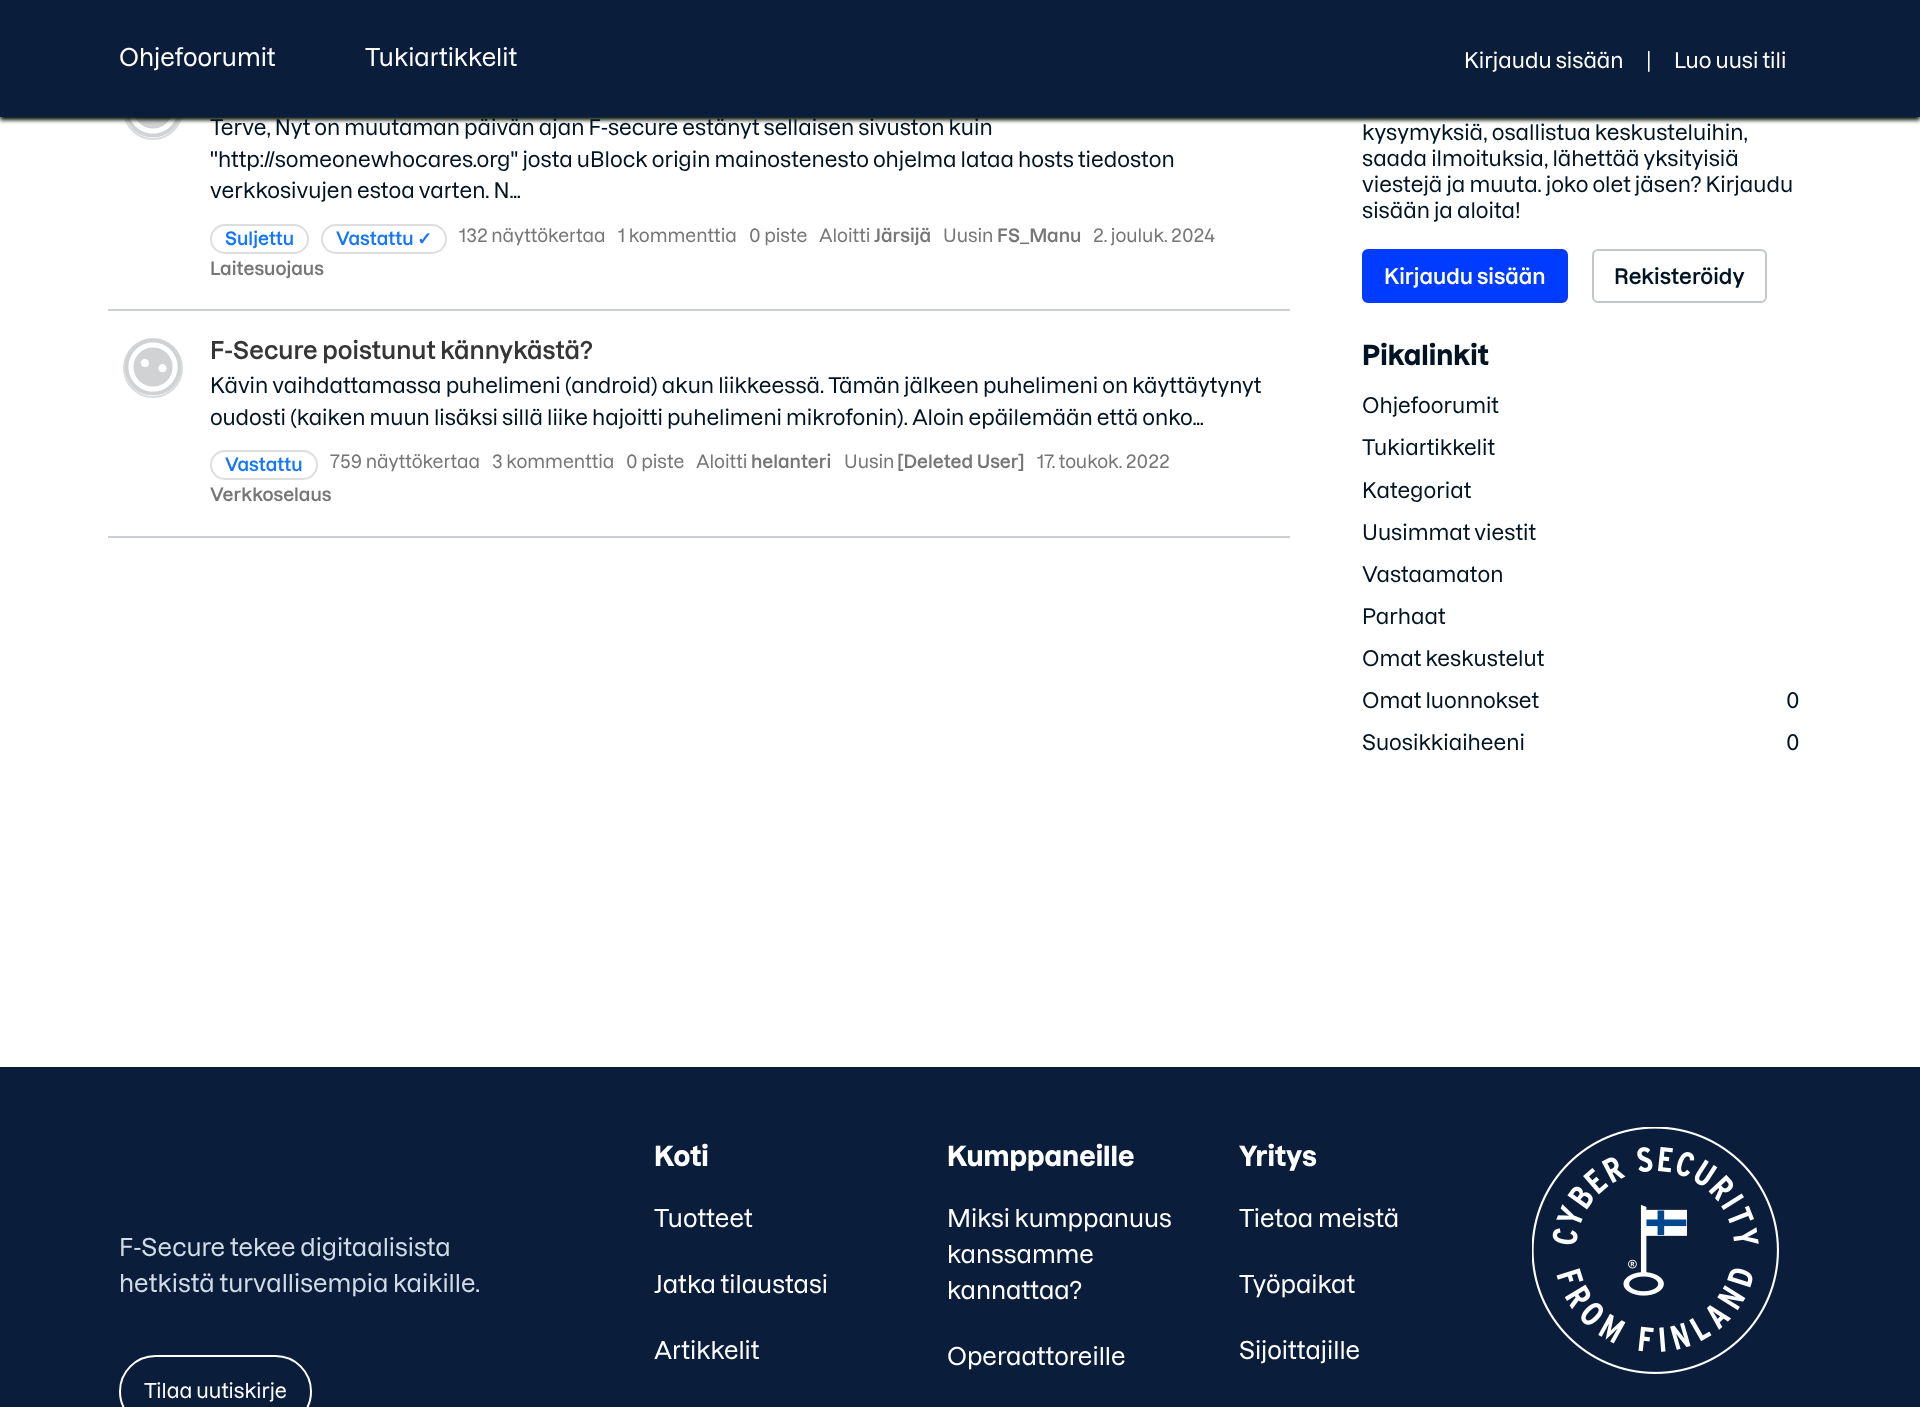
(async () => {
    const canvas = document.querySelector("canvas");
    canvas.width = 1920;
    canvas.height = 1407;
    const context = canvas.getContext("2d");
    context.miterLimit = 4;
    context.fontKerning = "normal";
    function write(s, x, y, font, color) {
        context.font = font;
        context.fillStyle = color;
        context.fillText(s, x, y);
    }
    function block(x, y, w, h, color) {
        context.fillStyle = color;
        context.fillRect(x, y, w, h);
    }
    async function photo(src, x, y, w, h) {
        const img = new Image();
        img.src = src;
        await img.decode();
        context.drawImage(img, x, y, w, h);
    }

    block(0, 0, 1920, 1407, "rgb(255, 255, 255)");
    context.beginPath();
    context.arc(153, 110, 29, 0, Math.PI * 2);
    context.strokeStyle = "rgb(217, 220, 222)";
    context.lineWidth = 2;
    context.stroke();
    await photo("media/1.png", 125, 117, 56, 21);
    context.fillStyle = "rgb(0, 13, 0)";
    context.filter = "blur(2px)";
    context.beginPath();
    context.rect(0, 3, 1920, 117);
    context.fill();
    context.filter = "none";
    block(0, 0, 1920, 117, "rgb(10, 30, 60)");
    write("Ohjefoorumit", 119, 66, "500 24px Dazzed", "rgb(255, 255, 255)");
    write("Tukiartikkelit", 365, 66, "500 24px Dazzed", "rgb(255, 255, 255)");
    write("Kirjaudu sisään", 1464, 68, "500 21px Dazzed", "rgb(255, 255, 255)");
    write("|", 1646, 68, "500 21px Dazzed", "rgb(255, 255, 255)");
    write("Luo uusi tili", 1674, 68, "500 21px Dazzed", "rgb(255, 255, 255)");
    write("Terve, Nyt on muutaman päivän ajan F-secure estänyt sellaisen sivuston kuin", 210, 135, "500 21px Dazzed", "rgb(0, 20, 35)");
    write("''http://someonewhocares.org'' josta uBlock origin mainostenesto ohjelma lataa hosts tiedoston", 210, 167, "500 21px Dazzed", "rgb(0, 20, 35)");
    write("verkkosivujen estoa varten. N…", 210, 198, "500 21px Dazzed", "rgb(0, 20, 35)");
    context.beginPath();
    context.roundRect(211, 225, 97, 28, 14);
    context.strokeStyle = "rgb(221, 222, 224)";
    context.stroke();
    write("Suljettu", 225, 245, "600 18px Dazzed", "rgb(20, 118, 255)");
    context.beginPath();
    context.roundRect(322, 225, 124, 28, 14);
    context.stroke();
    write("Vastattu", 336, 245, "600 18px Dazzed", "rgb(20, 118, 255)");
    write("✓", 417, 245, "bold 18px DejaVu Sans", "rgb(20, 118, 255)");
    write("132 näyttökertaa", 459, 242, "500 18px Dazzed", "rgb(118, 118, 118)");
    write("1 kommenttia", 618, 242, "500 18px Dazzed", "rgb(118, 118, 118)");
    write("0 piste", 749, 242, "500 18px Dazzed", "rgb(118, 118, 118)");
    write("Aloitti", 819, 242, "500 18px Dazzed", "rgb(118, 118, 118)");
    write("Järsijä", 874, 242, "600 18px Dazzed", "rgb(118, 118, 118)");
    write("Uusin", 943, 242, "500 18px Dazzed", "rgb(118, 118, 118)");
    write("FS_Manu", 997, 242, "600 18px Dazzed", "rgb(118, 118, 118)");
    write("2. jouluk. 2024", 1093, 242, "500 18px Dazzed", "rgb(118, 118, 118)");
    write("Laitesuojaus", 210, 275, "600 18px Dazzed", "rgb(118, 118, 118)");
    block(108, 309, 1182, 2, "rgb(204, 208, 211)");
    context.beginPath();
    context.arc(153, 368, 29, 0, Math.PI * 2);
    context.strokeStyle = "rgb(217, 220, 222)";
    context.stroke();
    await photo("media/2.png", 125, 339, 56, 57);
    write("F-Secure poistunut kännykästä?", 210, 359, "600 24px Dazzed", "rgb(54, 54, 54)");
    write("Kävin vaihdattamassa puhelimeni (android) akun liikkeessä. Tämän jälkeen puhelimeni on käyttäytynyt", 210, 393, "500 21px Dazzed", "rgb(0, 20, 35)");
    write("oudosti (kaiken muun lisäksi sillä liike hajoitti puhelimeni mikrofonin). Aloin epäilemään että onko…", 210, 425, "500 21px Dazzed", "rgb(0, 20, 35)");
    context.beginPath();
    context.roundRect(211, 451, 106, 28, 14);
    context.strokeStyle = "rgb(221, 222, 224)";
    context.stroke();
    write("Vastattu", 225, 471, "600 18px Dazzed", "rgb(20, 118, 255)");
    write("759 näyttökertaa", 330, 468, "500 18px Dazzed", "rgb(118, 118, 118)");
    write("3 kommenttia", 492, 468, "500 18px Dazzed", "rgb(118, 118, 118)");
    write("0 piste", 626, 468, "500 18px Dazzed", "rgb(118, 118, 118)");
    write("Aloitti", 696, 468, "500 18px Dazzed", "rgb(118, 118, 118)");
    write("helanteri", 751, 468, "600 18px Dazzed", "rgb(118, 118, 118)");
    write("Uusin", 844, 468, "500 18px Dazzed", "rgb(118, 118, 118)");
    write("[Deleted User]", 897, 468, "600 18px Dazzed", "rgb(118, 118, 118)");
    write("17. toukok. 2022", 1037, 468, "500 18px Dazzed", "rgb(118, 118, 118)");
    write("Verkkoselaus", 210, 501, "600 18px Dazzed", "rgb(118, 118, 118)");
    block(108, 536, 1182, 2, "rgb(204, 208, 211)");
    write("kysymyksiä, osallistua keskusteluihin,", 1362, 140, "500 21px Dazzed", "rgb(0, 20, 35)");
    write("saada ilmoituksia, lähettää yksityisiä", 1362, 166, "500 21px Dazzed", "rgb(0, 20, 35)");
    write("viestejä ja muuta. joko olet jäsen? Kirjaudu", 1362, 192, "500 21px Dazzed", "rgb(0, 20, 35)");
    write("sisään ja aloita!", 1362, 218, "500 21px Dazzed", "rgb(0, 20, 35)");
    context.fillStyle = "rgb(0, 60, 255)";
    context.beginPath();
    context.roundRect(1363, 250, 204, 52, 5);
    context.fill();
    context.strokeStyle = "rgb(0, 60, 255)";
    context.stroke();
    write("Kirjaudu sisään", 1384, 284, "600 21px Dazzed", "rgb(255, 255, 255)");
    context.beginPath();
    context.roundRect(1593, 250, 173, 52, 5);
    context.strokeStyle = "rgb(194, 199, 202)";
    context.stroke();
    write("Rekisteröidy", 1614, 284, "600 21px Dazzed", "rgb(0, 20, 35)");
    write("Pikalinkit", 1362, 365, "bold 27px Dazzed", "rgb(0, 20, 35)");
    write("Ohjefoorumit", 1362, 413, "500 21px Dazzed", "rgb(0, 20, 35)");
    write("Tukiartikkelit", 1362, 455, "500 21px Dazzed", "rgb(0, 20, 35)");
    write("Kategoriat", 1362, 498, "500 21px Dazzed", "rgb(0, 20, 35)");
    write("Uusimmat viestit", 1362, 540, "500 21px Dazzed", "rgb(0, 20, 35)");
    write("Vastaamaton", 1362, 582, "500 21px Dazzed", "rgb(0, 20, 35)");
    write("Parhaat", 1362, 624, "500 21px Dazzed", "rgb(0, 20, 35)");
    write("Omat keskustelut", 1362, 666, "500 21px Dazzed", "rgb(0, 20, 35)");
    write("Omat luonnokset", 1362, 708, "500 21px Dazzed", "rgb(0, 20, 35)");
    write("0", 1786, 708, "500 21px Dazzed", "rgb(0, 20, 35)");
    write("Suosikkiaiheeni", 1362, 750, "500 21px Dazzed", "rgb(0, 20, 35)");
    write("0", 1786, 750, "500 21px Dazzed", "rgb(0, 20, 35)");
    block(0, 1067, 1920, 340, "rgb(10, 30, 60)");
    write("F-Secure tekee digitaalisista", 119, 1256, "500 24px Dazzed", "rgb(210, 220, 230)");
    write("hetkistä turvallisempia kaikille.", 119, 1292, "500 24px Dazzed", "rgb(210, 220, 230)");
    context.beginPath();
    context.roundRect(120, 1356, 191, 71, 35.5);
    context.strokeStyle = "rgb(255, 255, 255)";
    context.stroke();
    write("Tilaa uutiskirje", 144, 1398, "500 20px Dazzed", "rgb(255, 255, 255)");
    write("Koti", 654, 1166, "bold 27px Dazzed", "rgb(255, 255, 255)");
    write("Tuotteet", 654, 1227, "500 24px Dazzed", "rgb(255, 255, 255)");
    write("Jatka tilaustasi", 654, 1293, "500 24px Dazzed", "rgb(255, 255, 255)");
    write("Artikkelit", 654, 1359, "500 24px Dazzed", "rgb(255, 255, 255)");
    write("Kumppaneille", 947, 1166, "bold 27px Dazzed", "rgb(255, 255, 255)");
    write("Miksi kumppanuus", 947, 1227, "500 24px Dazzed", "rgb(255, 255, 255)");
    write("kanssamme", 947, 1263, "500 24px Dazzed", "rgb(255, 255, 255)");
    write("kannattaa?", 947, 1299, "500 24px Dazzed", "rgb(255, 255, 255)");
    write("Operaattoreille", 947, 1365, "500 24px Dazzed", "rgb(255, 255, 255)");
    write("Yritys", 1239, 1166, "bold 27px Dazzed", "rgb(255, 255, 255)");
    write("Tietoa meistä", 1239, 1227, "500 24px Dazzed", "rgb(255, 255, 255)");
    write("Työpaikat", 1239, 1293, "500 24px Dazzed", "rgb(255, 255, 255)");
    write("Sijoittajille", 1239, 1359, "500 24px Dazzed", "rgb(255, 255, 255)");
    await photo("media/3.png", 1532, 1127, 247, 247);
})();
